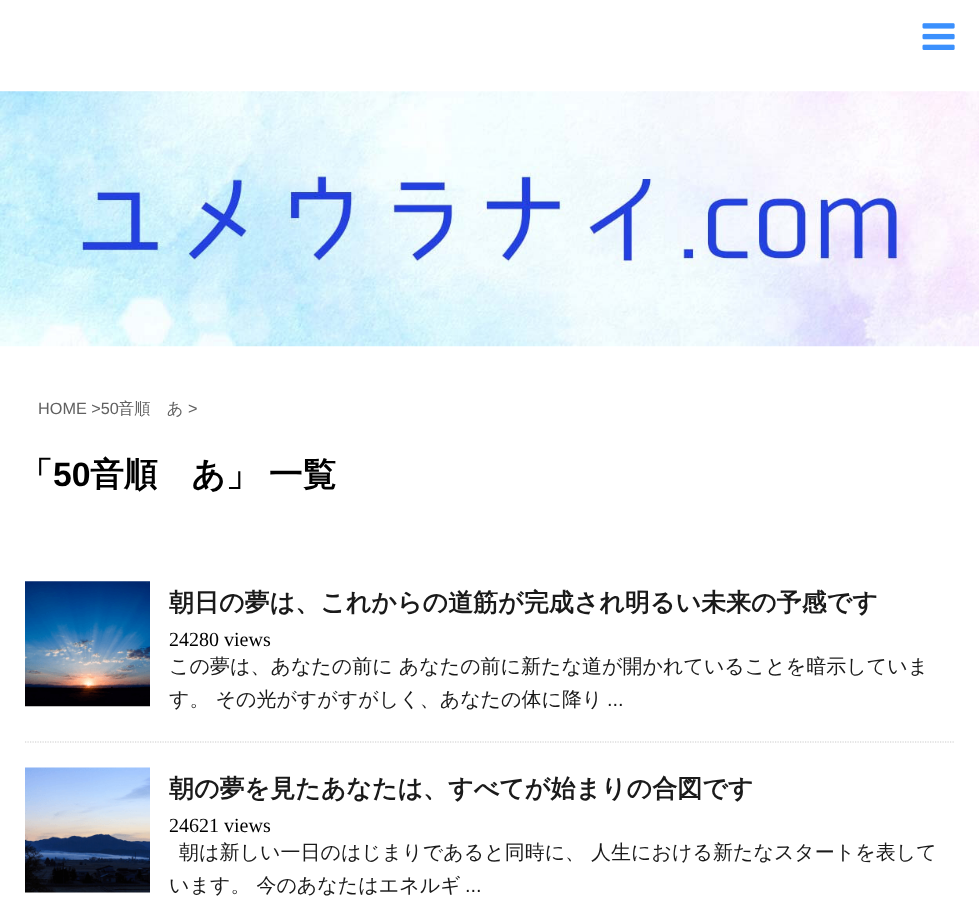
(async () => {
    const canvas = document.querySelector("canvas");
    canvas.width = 979;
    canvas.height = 919;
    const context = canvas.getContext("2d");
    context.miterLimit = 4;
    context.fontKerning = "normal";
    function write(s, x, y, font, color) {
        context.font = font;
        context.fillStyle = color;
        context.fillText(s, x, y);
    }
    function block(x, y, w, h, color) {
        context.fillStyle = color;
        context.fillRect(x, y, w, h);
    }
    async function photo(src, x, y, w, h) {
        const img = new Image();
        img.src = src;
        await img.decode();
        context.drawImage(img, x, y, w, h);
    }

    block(0, 0, 979, 919, "rgb(255, 255, 255)");
    await photo("media/1.png", 922, 23, 33, 27);
    await photo("media/2.png", 0, 91, 979, 256);
    write("HOME >50", 38, 414, "16.25px Liberation Sans", "rgb(97, 97, 97)");
    write("音順　あ", 118, 414, "500 16.25px WenQuanYi Zen Hei", "rgb(97, 97, 97)");
    write(">", 188, 414, "16.25px Liberation Sans", "rgb(97, 97, 97)");
    write("「", 19, 486, "bold 33.75px WenQuanYi Zen Hei", "rgb(0, 0, 0)");
    write("50", 53, 486, "bold 33.75px Liberation Sans", "rgb(0, 0, 0)");
    context.wordSpacing = "-1px";
    write("音順　あ」 一覧", 90, 486, "bold 33.75px WenQuanYi Zen Hei", "rgb(0, 0, 0)");
    context.beginPath();
    context.moveTo(25, 742);
    context.lineTo(955, 742);
    context.strokeStyle = "rgb(204, 204, 204)";
    context.lineWidth = 1.2;
    context.setLineDash([1.25, 1.25]);
    context.stroke();
    await photo("media/3.png", 25, 581, 125, 126);
    context.wordSpacing = "0px";
    write("朝日の夢は、これからの道筋が完成され明るい未来の予感です", 169, 611, "bold 25px WenQuanYi Zen Hei", "rgb(26, 26, 26)");
    write("24280 views", 169, 646, "20px Liberation Serif", "rgb(0, 0, 0)");
    write("この夢は、あなたの前に あなたの前に新たな道が開かれていることを暗示していま", 169, 673, "500 20px WenQuanYi Zen Hei", "rgb(26, 26, 26)");
    write("す。 その光がすがすがしく、あなたの体に降り", 169, 706, "500 20px WenQuanYi Zen Hei", "rgb(26, 26, 26)");
    write("...", 607, 706, "20px Liberation Sans", "rgb(26, 26, 26)");
    await photo("media/4.png", 25, 767, 125, 126);
    write("朝の夢を見たあなたは、すべてが始まりの合図です", 169, 797, "bold 25px WenQuanYi Zen Hei", "rgb(26, 26, 26)");
    write("24621 views", 169, 832, "20px Liberation Serif", "rgb(0, 0, 0)");
    write("朝は新しい一日のはじまりであると同時に、 人生における新たなスタートを表して", 179, 859, "500 20px WenQuanYi Zen Hei", "rgb(26, 26, 26)");
    write("います。 今のあなたはエネルギ", 169, 892, "500 20px WenQuanYi Zen Hei", "rgb(26, 26, 26)");
    write("...", 465, 892, "20px Liberation Sans", "rgb(26, 26, 26)");
})();
